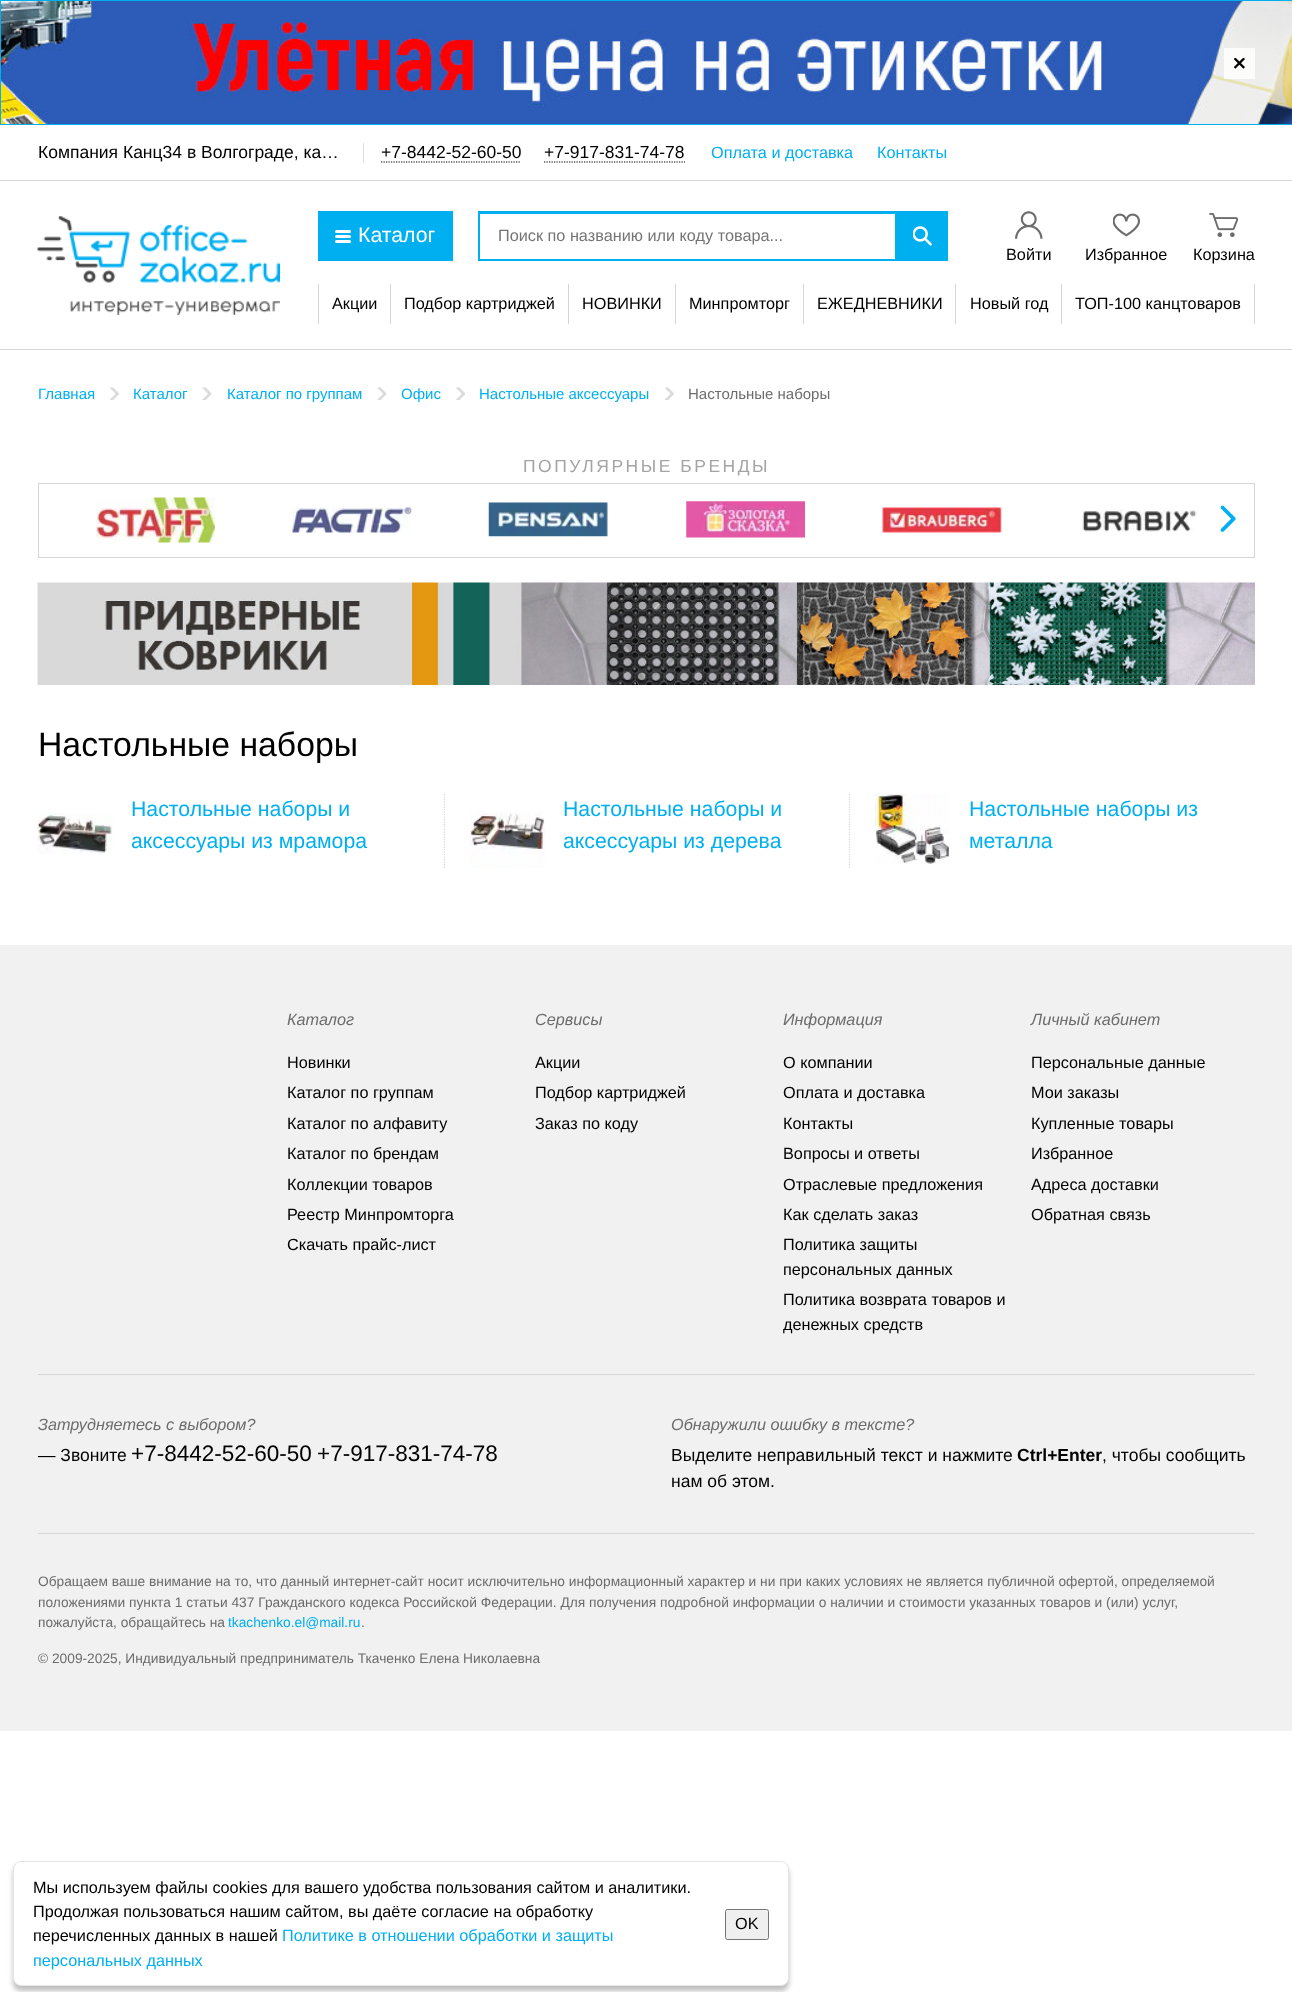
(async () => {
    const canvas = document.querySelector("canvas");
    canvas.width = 1292;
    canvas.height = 1992;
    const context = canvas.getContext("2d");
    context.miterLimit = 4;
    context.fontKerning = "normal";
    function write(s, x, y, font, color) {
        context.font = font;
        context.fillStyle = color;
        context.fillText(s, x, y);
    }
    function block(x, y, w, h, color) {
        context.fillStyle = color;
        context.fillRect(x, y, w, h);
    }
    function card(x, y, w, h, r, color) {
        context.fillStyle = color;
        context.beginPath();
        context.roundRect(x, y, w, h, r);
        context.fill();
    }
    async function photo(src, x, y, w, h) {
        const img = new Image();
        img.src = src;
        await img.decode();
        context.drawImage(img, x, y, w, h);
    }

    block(0, 0, 1292, 1992, "rgb(255, 255, 255)");
    await photo("media/1.png", 1, 1, 1291, 123);
    context.strokeStyle = "rgb(0, 175, 240)";
    context.strokeRect(0.5, 0.5, 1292, 124);
    block(1224, 48, 31, 31, "rgba(255, 255, 255, 0.8)");
    await photo("media/2.png", 1234, 58, 11, 11);
    block(0, 180, 1292, 1, "rgb(214, 214, 214)");
    write("Компания Канц34 в Волгограде, ка…", 38, 158, "17.5px Liberation Sans", "rgb(0, 0, 0)");
    block(363, 143, 1, 20, "rgb(222, 222, 222)");
    write("+7-8442-52-60-50", 381, 158, "17.5px Liberation Sans", "rgb(0, 0, 0)");
    context.beginPath();
    context.moveTo(381, 162);
    context.lineTo(521, 162);
    context.strokeStyle = "rgb(0, 0, 0)";
    context.lineWidth = 1.2;
    context.setLineDash([1.25, 1.25]);
    context.stroke();
    write("+7-917-831-74-78", 544, 158, "17.5px Liberation Sans", "rgb(0, 0, 0)");
    context.beginPath();
    context.moveTo(544, 162);
    context.lineTo(685, 162);
    context.stroke();
    write("Оплата и доставка", 711, 158, "16.25px Liberation Sans", "rgb(0, 175, 240)");
    write("Контакты", 877, 158, "16.25px Liberation Sans", "rgb(0, 175, 240)");
    block(0, 349, 1292, 1, "rgb(214, 214, 214)");
    await photo("media/3.png", 37, 216, 243, 99);
    block(318, 211, 135, 50, "rgb(0, 175, 240)");
    card(335, 235, 16, 3, 1.5, "rgb(255, 255, 255)");
    card(335, 230, 16, 3, 1.5, "rgb(255, 255, 255)");
    card(335, 240, 16, 3, 1.5, "rgb(255, 255, 255)");
    write("Каталог", 358, 242, "21.25px Liberation Sans", "rgb(255, 255, 255)");
    context.strokeStyle = "rgb(0, 175, 240)";
    context.lineWidth = 3;
    context.setLineDash([]);
    context.strokeRect(479.5, 212.5, 467, 47);
    block(480, 214, 415, 45, "rgb(255, 255, 255)");
    write("Поиск по названию или коду товара...", 498, 241, "16.25px Liberation Sans", "rgb(117, 117, 117)");
    block(895, 214, 50, 44, "rgb(0, 175, 240)");
    await photo("media/4.png", 913, 226, 19, 20);
    await photo("media/5.png", 1015, 211, 28, 28);
    write("Войти", 1006, 260, "16.25px Liberation Sans", "rgb(0, 0, 0)");
    await photo("media/6.png", 1113, 213, 27, 24);
    write("Избранное", 1085, 260, "16.25px Liberation Sans", "rgb(0, 0, 0)");
    await photo("media/7.png", 1209, 212, 30, 25);
    write("Корзина", 1193, 260, "16.25px Liberation Sans", "rgb(0, 0, 0)");
    block(390, 284, 1, 40, "rgb(214, 214, 214)");
    block(318, 284, 1, 40, "rgb(214, 214, 214)");
    write("Акции", 332, 309, "16.25px Liberation Sans", "rgb(0, 0, 0)");
    block(568, 284, 1, 40, "rgb(214, 214, 214)");
    write("Подбор картриджей", 404, 309, "16.25px Liberation Sans", "rgb(0, 0, 0)");
    block(675, 284, 1, 40, "rgb(214, 214, 214)");
    write("НОВИНКИ", 582, 309, "16.25px Liberation Sans", "rgb(0, 0, 0)");
    block(803, 284, 1, 40, "rgb(214, 214, 214)");
    write("Минпромторг", 689, 309, "16.25px Liberation Sans", "rgb(0, 0, 0)");
    block(955, 284, 1, 40, "rgb(214, 214, 214)");
    write("ЕЖЕДНЕВНИКИ", 817, 309, "16.25px Liberation Sans", "rgb(0, 0, 0)");
    block(1061, 284, 1, 40, "rgb(214, 214, 214)");
    write("Новый год", 970, 309, "16.25px Liberation Sans", "rgb(0, 0, 0)");
    block(1254, 284, 1, 40, "rgb(214, 214, 214)");
    write("ТОП-100 канцтоваров", 1075, 309, "16.25px Liberation Sans", "rgb(0, 0, 0)");
    write("Главная", 38, 399, "15px Liberation Sans", "rgb(0, 175, 240)");
    await photo("media/8.png", 110, 387, 9, 13);
    write("Каталог", 133, 399, "15px Liberation Sans", "rgb(0, 175, 240)");
    await photo("media/9.png", 202, 387, 10, 13);
    write("Каталог по группам", 227, 399, "15px Liberation Sans", "rgb(0, 175, 240)");
    await photo("media/10.png", 377, 387, 10, 13);
    write("Офис", 401, 399, "15px Liberation Sans", "rgb(0, 175, 240)");
    await photo("media/11.png", 456, 387, 9, 13);
    write("Настольные аксессуары", 479, 399, "15px Liberation Sans", "rgb(0, 175, 240)");
    await photo("media/8.png", 665, 387, 9, 13);
    write("Настольные наборы", 688, 399, "15px Liberation Sans", "rgb(108, 108, 108)");
    context.letterSpacing = "2.5px";
    write("ПОПУЛЯРНЫЕ БРЕНДЫ", 523, 472, "17.5px Liberation Sans", "rgb(164, 164, 164)");
    context.strokeStyle = "rgb(214, 214, 214)";
    context.lineWidth = 1;
    context.strokeRect(38.5, 483.5, 1216, 74);
    await photo("media/12.png", 96, 497, 119, 46);
    await photo("media/13.png", 292, 507, 120, 26);
    await photo("media/14.png", 488, 502, 120, 35);
    await photo("media/15.png", 686, 501, 119, 37);
    await photo("media/16.png", 882, 507, 120, 26);
    await photo("media/17.png", 1082, 510, 115, 22);
    await photo("media/18.png", 1220, 505, 16, 27);
    await photo("media/19.png", 37, 582, 1218, 103);
    context.letterSpacing = "0px";
    write("Настольные наборы", 38, 756, "33.75px Liberation Sans", "rgb(0, 0, 0)");
    await photo("media/20.png", 37, 813, 76, 41);
    write("Настольные наборы и", 131, 816, "21.25px Liberation Sans", "rgb(0, 175, 240)");
    write("аксессуары из мрамора", 131, 848, "21.25px Liberation Sans", "rgb(0, 175, 240)");
    context.beginPath();
    context.moveTo(444.5, 794);
    context.lineTo(444.5, 869);
    context.lineWidth = 1.2;
    context.setLineDash([1.25, 1.25]);
    context.stroke();
    await photo("media/21.png", 470, 811, 75, 57);
    write("Настольные наборы и", 563, 816, "21.25px Liberation Sans", "rgb(0, 175, 240)");
    write("аксессуары из дерева", 563, 848, "21.25px Liberation Sans", "rgb(0, 175, 240)");
    context.beginPath();
    context.moveTo(849.5, 794);
    context.lineTo(849.5, 869);
    context.stroke();
    await photo("media/22.png", 875, 793, 75, 71);
    write("Настольные наборы из", 969, 816, "21.25px Liberation Sans", "rgb(0, 175, 240)");
    write("металла", 969, 848, "21.25px Liberation Sans", "rgb(0, 175, 240)");
    block(0, 945, 1292, 786, "rgb(241, 241, 241)");
    write("Каталог", 287, 1025, "italic 16.25px Liberation Sans", "rgb(108, 108, 108)");
    write("Новинки", 287, 1068, "16.25px Liberation Sans", "rgb(0, 0, 0)");
    write("Каталог по группам", 287, 1098, "16.25px Liberation Sans", "rgb(0, 0, 0)");
    write("Каталог по алфавиту", 287, 1129, "16.25px Liberation Sans", "rgb(0, 0, 0)");
    write("Каталог по брендам", 287, 1159, "16.25px Liberation Sans", "rgb(0, 0, 0)");
    write("Коллекции товаров", 287, 1190, "16.25px Liberation Sans", "rgb(0, 0, 0)");
    write("Реестр Минпромторга", 287, 1220, "16.25px Liberation Sans", "rgb(0, 0, 0)");
    write("Скачать прайс-лист", 287, 1250, "16.25px Liberation Sans", "rgb(0, 0, 0)");
    write("Сервисы", 535, 1025, "italic 16.25px Liberation Sans", "rgb(108, 108, 108)");
    write("Акции", 535, 1068, "16.25px Liberation Sans", "rgb(0, 0, 0)");
    write("Подбор картриджей", 535, 1098, "16.25px Liberation Sans", "rgb(0, 0, 0)");
    write("Заказ по коду", 535, 1129, "16.25px Liberation Sans", "rgb(0, 0, 0)");
    write("Информация", 783, 1025, "italic 16.25px Liberation Sans", "rgb(108, 108, 108)");
    write("О компании", 783, 1068, "16.25px Liberation Sans", "rgb(0, 0, 0)");
    write("Оплата и доставка", 783, 1098, "16.25px Liberation Sans", "rgb(0, 0, 0)");
    write("Контакты", 783, 1129, "16.25px Liberation Sans", "rgb(0, 0, 0)");
    write("Вопросы и ответы", 783, 1159, "16.25px Liberation Sans", "rgb(0, 0, 0)");
    write("Отраслевые предложения", 783, 1190, "16.25px Liberation Sans", "rgb(0, 0, 0)");
    write("Как сделать заказ", 783, 1220, "16.25px Liberation Sans", "rgb(0, 0, 0)");
    write("Политика защиты", 783, 1250, "16.25px Liberation Sans", "rgb(0, 0, 0)");
    write("персональных данных", 783, 1275, "16.25px Liberation Sans", "rgb(0, 0, 0)");
    write("Политика возврата товаров и", 783, 1305, "16.25px Liberation Sans", "rgb(0, 0, 0)");
    write("денежных средств", 783, 1330, "16.25px Liberation Sans", "rgb(0, 0, 0)");
    write("Личный кабинет", 1031, 1025, "italic 16.25px Liberation Sans", "rgb(108, 108, 108)");
    write("Персональные данные", 1031, 1068, "16.25px Liberation Sans", "rgb(0, 0, 0)");
    write("Мои заказы", 1031, 1098, "16.25px Liberation Sans", "rgb(0, 0, 0)");
    write("Купленные товары", 1031, 1129, "16.25px Liberation Sans", "rgb(0, 0, 0)");
    write("Избранное", 1031, 1159, "16.25px Liberation Sans", "rgb(0, 0, 0)");
    write("Адреса доставки", 1031, 1190, "16.25px Liberation Sans", "rgb(0, 0, 0)");
    write("Обратная связь", 1031, 1220, "16.25px Liberation Sans", "rgb(0, 0, 0)");
    block(38, 1374, 1217, 1, "rgb(214, 214, 214)");
    write("Затрудняетесь с выбором?", 38, 1430, "italic 16.25px Liberation Sans", "rgb(108, 108, 108)");
    write("— Звоните", 38, 1461, "17.5px Liberation Sans", "rgb(0, 0, 0)");
    write("+7-8442-52-60-50", 131, 1461, "22.5px Liberation Sans", "rgb(0, 0, 0)");
    write("+7-917-831-74-78", 317, 1461, "22.5px Liberation Sans", "rgb(0, 0, 0)");
    write("Обнаружили ошибку в тексте?", 671, 1430, "italic 16.25px Liberation Sans", "rgb(108, 108, 108)");
    write("Выделите неправильный текст и нажмите", 671, 1461, "17.5px Liberation Sans", "rgb(0, 0, 0)");
    write("Ctrl+Enter", 1017, 1461, "bold 17.5px Liberation Sans", "rgb(0, 0, 0)");
    write(", чтобы сообщить", 1102, 1461, "17.5px Liberation Sans", "rgb(0, 0, 0)");
    write("нам об этом.", 671, 1487, "17.5px Liberation Sans", "rgb(0, 0, 0)");
    block(38, 1533, 1217, 1, "rgb(214, 214, 214)");
    write("Обращаем ваше внимание на то, что данный интернет-сайт носит исключительно информационный характер и ни при каких условиях не является публичной офертой, определяемой", 38, 1586, "13.75px Liberation Sans", "rgb(108, 108, 108)");
    write("положениями пункта 1 статьи 437 Гражданского кодекса Российской Федерации. Для получения подробной информации о наличии и стоимости указанных товаров и (или) услуг,", 38, 1607, "13.75px Liberation Sans", "rgb(108, 108, 108)");
    write("пожалуйста, обращайтесь на", 38, 1627, "13.75px Liberation Sans", "rgb(108, 108, 108)");
    write("tkachenko.el@mail.ru", 228, 1627, "13.75px Liberation Sans", "rgb(0, 175, 240)");
    write(".", 361, 1627, "13.75px Liberation Sans", "rgb(108, 108, 108)");
    write("© 2009-2025, Индивидуальный предприниматель Ткаченко Елена Николаевна", 38, 1663, "13.75px Liberation Sans", "rgb(108, 108, 108)");
    context.fillStyle = "rgba(0, 0, 0, 0.25)";
    context.filter = "blur(2.5px)";
    context.beginPath();
    context.roundRect(13, 1866, 776, 125, 8);
    context.fill();
    context.filter = "none";
    context.fillStyle = "rgb(255, 255, 255)";
    context.beginPath();
    context.roundRect(13.5, 1861.5, 775, 124, 7.5);
    context.fill();
    context.strokeStyle = "rgb(229, 229, 229)";
    context.lineWidth = 1;
    context.setLineDash([]);
    context.stroke();
    write("Мы используем файлы cookies для вашего удобства пользования сайтом и аналитики.", 33, 1893, "16.25px Liberation Sans", "rgb(0, 0, 0)");
    write("Продолжая пользоваться нашим сайтом, вы даёте согласие на обработку", 33, 1917, "16.25px Liberation Sans", "rgb(0, 0, 0)");
    write("перечисленных данных в нашей", 33, 1941, "16.25px Liberation Sans", "rgb(0, 0, 0)");
    write("Политике в отношении обработки и защиты", 282, 1941, "16.25px Liberation Sans", "rgb(0, 175, 240)");
    write("персональных данных", 33, 1966, "16.25px Liberation Sans", "rgb(0, 175, 240)");
    context.fillStyle = "rgb(239, 239, 239)";
    context.beginPath();
    context.roundRect(725.5, 1909.5, 43, 30, 2);
    context.fill();
    context.strokeStyle = "rgb(118, 118, 118)";
    context.stroke();
    write("OK", 735, 1929, "16.25px Liberation Sans", "rgb(0, 0, 0)");
})();
